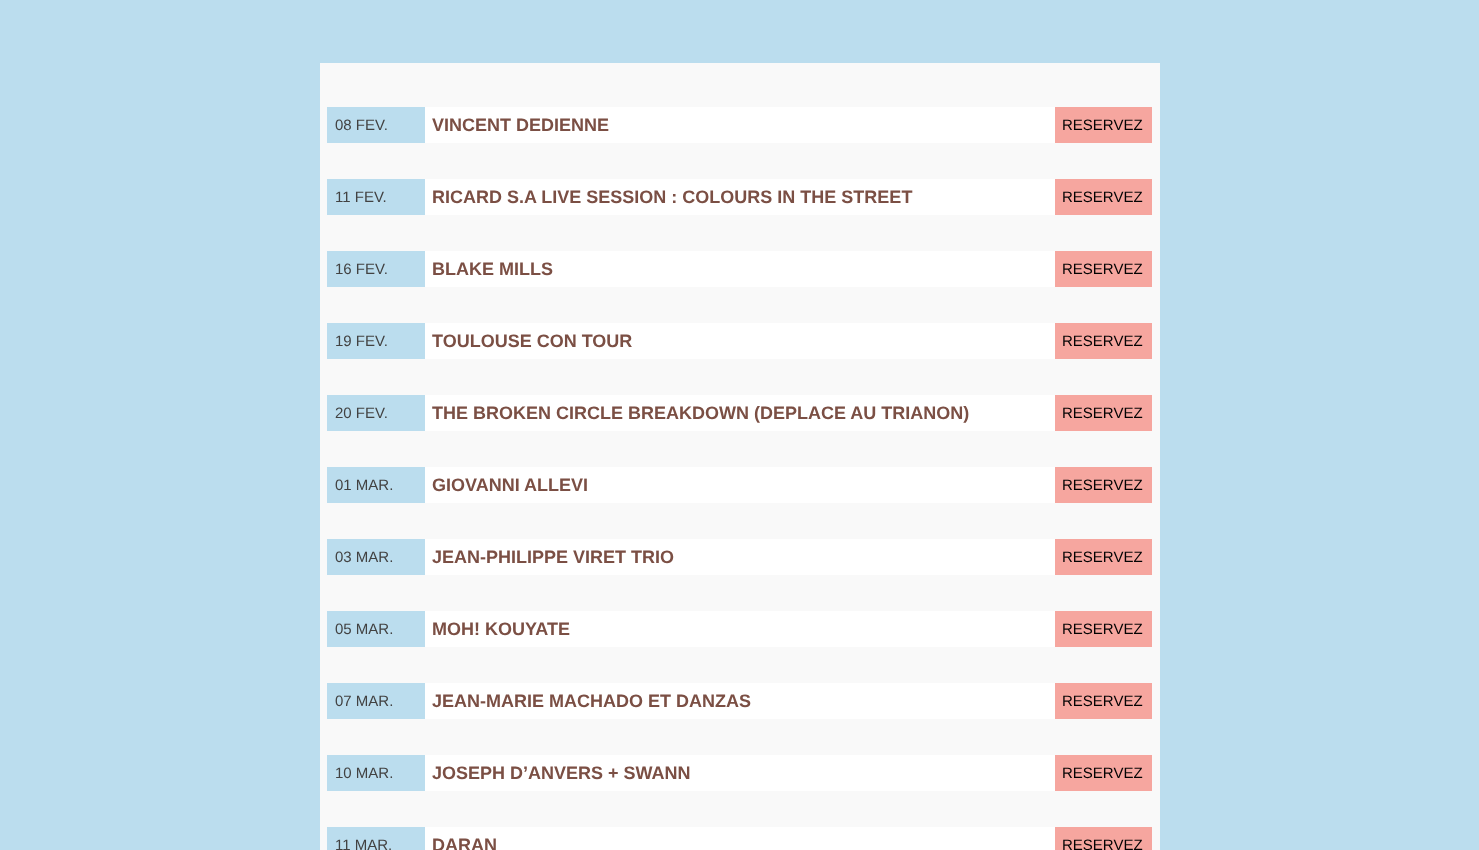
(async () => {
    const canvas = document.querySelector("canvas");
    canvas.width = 1479;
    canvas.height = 850;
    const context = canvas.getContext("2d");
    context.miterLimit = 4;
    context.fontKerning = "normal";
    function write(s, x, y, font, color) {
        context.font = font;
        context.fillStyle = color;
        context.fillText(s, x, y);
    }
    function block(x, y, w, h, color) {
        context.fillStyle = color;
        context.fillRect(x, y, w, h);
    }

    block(0, 0, 1479, 850, "rgb(187, 221, 238)");
    block(320, 63, 840, 787, "rgb(249, 249, 249)");
    block(327, 107, 98, 36, "rgb(187, 221, 238)");
    write("08 FEV.", 335, 130, "15px Liberation Sans", "rgb(66, 66, 66)");
    block(425, 107, 630, 36, "rgb(255, 255, 255)");
    write("VINCENT DEDIENNE", 432, 131, "bold 18px Liberation Sans", "rgb(123, 79, 68)");
    block(1055, 107, 97, 36, "rgb(246, 166, 159)");
    write("RESERVEZ", 1062, 130, "15px Liberation Sans", "rgb(3, 3, 3)");
    block(327, 179, 98, 36, "rgb(187, 221, 238)");
    write("11 FEV.", 335, 202, "15px Liberation Sans", "rgb(66, 66, 66)");
    block(425, 179, 630, 36, "rgb(255, 255, 255)");
    write("RICARD S.A LIVE SESSION : COLOURS IN THE STREET", 432, 203, "bold 18px Liberation Sans", "rgb(123, 79, 68)");
    block(1055, 179, 97, 36, "rgb(246, 166, 159)");
    write("RESERVEZ", 1062, 202, "15px Liberation Sans", "rgb(3, 3, 3)");
    block(327, 251, 98, 36, "rgb(187, 221, 238)");
    write("16 FEV.", 335, 274, "15px Liberation Sans", "rgb(66, 66, 66)");
    block(425, 251, 630, 36, "rgb(255, 255, 255)");
    write("BLAKE MILLS", 432, 275, "bold 18px Liberation Sans", "rgb(123, 79, 68)");
    block(1055, 251, 97, 36, "rgb(246, 166, 159)");
    write("RESERVEZ", 1062, 274, "15px Liberation Sans", "rgb(3, 3, 3)");
    block(327, 323, 98, 36, "rgb(187, 221, 238)");
    write("19 FEV.", 335, 346, "15px Liberation Sans", "rgb(66, 66, 66)");
    block(425, 323, 630, 36, "rgb(255, 255, 255)");
    write("TOULOUSE CON TOUR", 432, 347, "bold 18px Liberation Sans", "rgb(123, 79, 68)");
    block(1055, 323, 97, 36, "rgb(246, 166, 159)");
    write("RESERVEZ", 1062, 346, "15px Liberation Sans", "rgb(3, 3, 3)");
    block(327, 395, 98, 36, "rgb(187, 221, 238)");
    write("20 FEV.", 335, 418, "15px Liberation Sans", "rgb(66, 66, 66)");
    block(425, 395, 630, 36, "rgb(255, 255, 255)");
    write("THE BROKEN CIRCLE BREAKDOWN (DEPLACE AU TRIANON)", 432, 419, "bold 18px Liberation Sans", "rgb(123, 79, 68)");
    block(1055, 395, 97, 36, "rgb(246, 166, 159)");
    write("RESERVEZ", 1062, 418, "15px Liberation Sans", "rgb(3, 3, 3)");
    block(327, 467, 98, 36, "rgb(187, 221, 238)");
    write("01 MAR.", 335, 490, "15px Liberation Sans", "rgb(66, 66, 66)");
    block(425, 467, 630, 36, "rgb(255, 255, 255)");
    write("GIOVANNI ALLEVI", 432, 491, "bold 18px Liberation Sans", "rgb(123, 79, 68)");
    block(1055, 467, 97, 36, "rgb(246, 166, 159)");
    write("RESERVEZ", 1062, 490, "15px Liberation Sans", "rgb(3, 3, 3)");
    block(327, 539, 98, 36, "rgb(187, 221, 238)");
    write("03 MAR.", 335, 562, "15px Liberation Sans", "rgb(66, 66, 66)");
    block(425, 539, 630, 36, "rgb(255, 255, 255)");
    write("JEAN-PHILIPPE VIRET TRIO", 432, 563, "bold 18px Liberation Sans", "rgb(123, 79, 68)");
    block(1055, 539, 97, 36, "rgb(246, 166, 159)");
    write("RESERVEZ", 1062, 562, "15px Liberation Sans", "rgb(3, 3, 3)");
    block(327, 611, 98, 36, "rgb(187, 221, 238)");
    write("05 MAR.", 335, 634, "15px Liberation Sans", "rgb(66, 66, 66)");
    block(425, 611, 630, 36, "rgb(255, 255, 255)");
    write("MOH! KOUYATE", 432, 635, "bold 18px Liberation Sans", "rgb(123, 79, 68)");
    block(1055, 611, 97, 36, "rgb(246, 166, 159)");
    write("RESERVEZ", 1062, 634, "15px Liberation Sans", "rgb(3, 3, 3)");
    block(327, 683, 98, 36, "rgb(187, 221, 238)");
    write("07 MAR.", 335, 706, "15px Liberation Sans", "rgb(66, 66, 66)");
    block(425, 683, 630, 36, "rgb(255, 255, 255)");
    write("JEAN-MARIE MACHADO ET DANZAS", 432, 707, "bold 18px Liberation Sans", "rgb(123, 79, 68)");
    block(1055, 683, 97, 36, "rgb(246, 166, 159)");
    write("RESERVEZ", 1062, 706, "15px Liberation Sans", "rgb(3, 3, 3)");
    block(327, 755, 98, 36, "rgb(187, 221, 238)");
    write("10 MAR.", 335, 778, "15px Liberation Sans", "rgb(66, 66, 66)");
    block(425, 755, 630, 36, "rgb(255, 255, 255)");
    write("JOSEPH D’ANVERS + SWANN", 432, 779, "bold 18px Liberation Sans", "rgb(123, 79, 68)");
    block(1055, 755, 97, 36, "rgb(246, 166, 159)");
    write("RESERVEZ", 1062, 778, "15px Liberation Sans", "rgb(3, 3, 3)");
    block(327, 827, 98, 23, "rgb(187, 221, 238)");
    write("11 MAR.", 335, 850, "15px Liberation Sans", "rgb(66, 66, 66)");
    block(425, 827, 630, 23, "rgb(255, 255, 255)");
    write("DARAN", 432, 851, "bold 18px Liberation Sans", "rgb(123, 79, 68)");
    block(1055, 827, 97, 23, "rgb(246, 166, 159)");
    write("RESERVEZ", 1062, 850, "15px Liberation Sans", "rgb(3, 3, 3)");
})();
